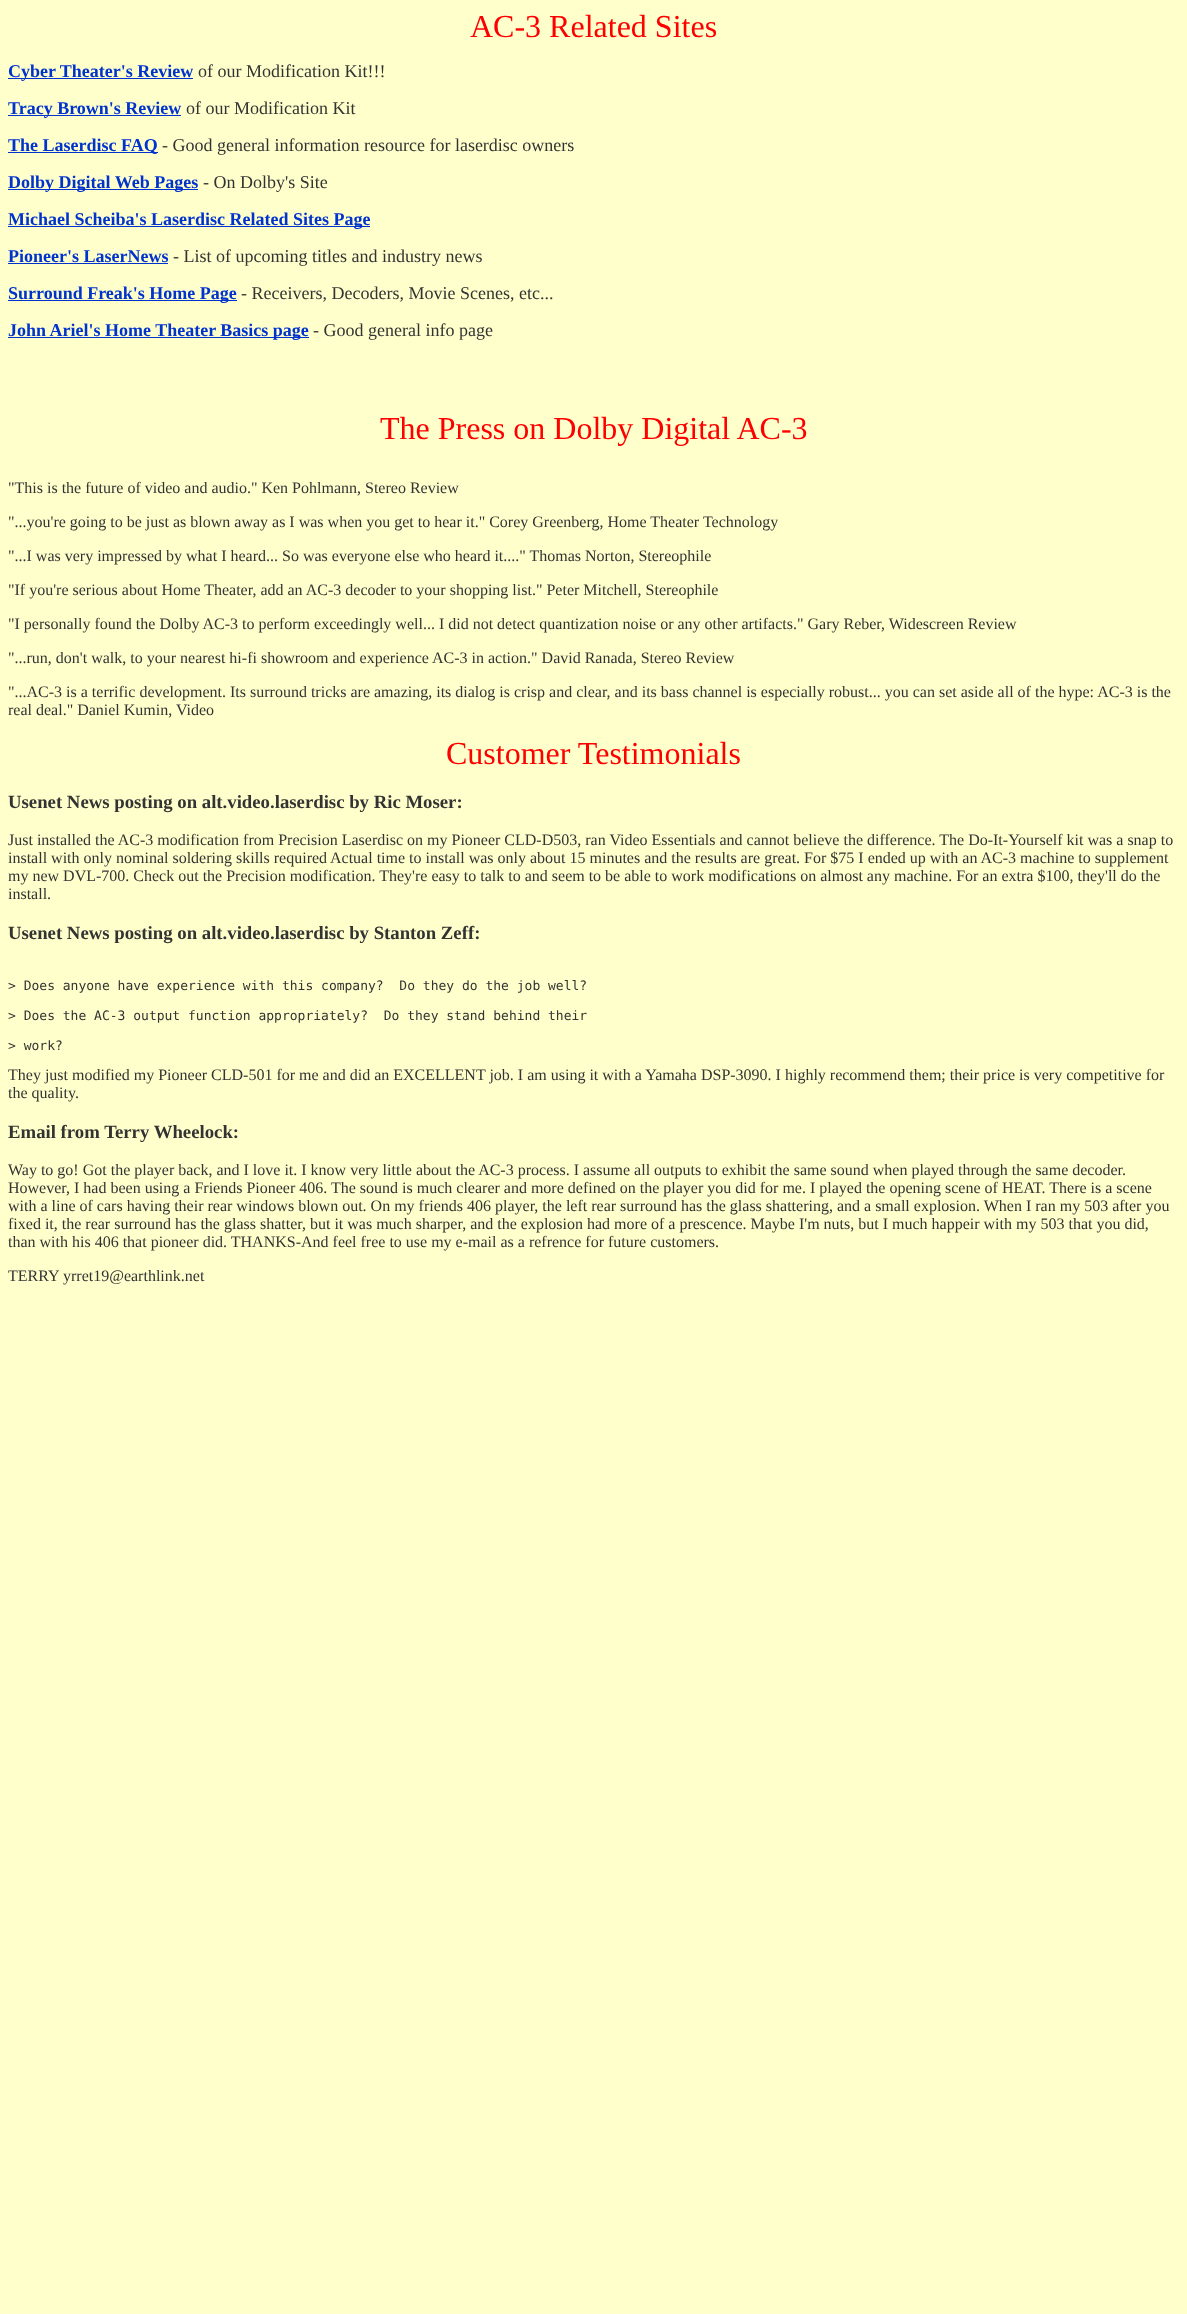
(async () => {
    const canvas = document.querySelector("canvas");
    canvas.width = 1187;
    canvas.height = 2314;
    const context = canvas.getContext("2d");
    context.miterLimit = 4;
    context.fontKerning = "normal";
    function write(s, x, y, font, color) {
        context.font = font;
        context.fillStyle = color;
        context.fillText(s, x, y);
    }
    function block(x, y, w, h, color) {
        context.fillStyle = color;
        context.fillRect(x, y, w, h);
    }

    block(0, 0, 1187, 2314, "rgb(255, 255, 204)");
    write("AC-3 Related Sites", 470, 37, "32px Liberation Serif", "rgb(255, 0, 0)");
    block(8, 78, 185, 1, "rgb(0, 51, 205)");
    write("Cyber Theater's Review", 8, 77, "bold 18px Liberation Serif", "rgb(0, 51, 205)");
    write("of our Modification Kit!!!", 198, 77, "18px Liberation Serif", "rgb(51, 51, 51)");
    block(8, 115, 173, 1, "rgb(0, 51, 205)");
    write("Tracy Brown's Review", 8, 114, "bold 18px Liberation Serif", "rgb(0, 51, 205)");
    write("of our Modification Kit", 186, 114, "18px Liberation Serif", "rgb(51, 51, 51)");
    block(8, 152, 150, 1, "rgb(0, 51, 205)");
    write("The Laserdisc FAQ", 8, 151, "bold 18px Liberation Serif", "rgb(0, 51, 205)");
    write("- Good general information resource for laserdisc owners", 162, 151, "18px Liberation Serif", "rgb(51, 51, 51)");
    block(8, 189, 190, 1, "rgb(0, 51, 205)");
    write("Dolby Digital Web Pages", 8, 188, "bold 18px Liberation Serif", "rgb(0, 51, 205)");
    write("- On Dolby's Site", 203, 188, "18px Liberation Serif", "rgb(51, 51, 51)");
    block(8, 226, 362, 1, "rgb(0, 51, 205)");
    write("Michael Scheiba's Laserdisc Related Sites Page", 8, 225, "bold 18px Liberation Serif", "rgb(0, 51, 205)");
    write("Pioneer's LaserNews", 8, 262, "bold 18px Liberation Serif", "rgb(0, 51, 205)");
    block(8, 263, 160, 1, "rgb(0, 51, 205)");
    write("- List of upcoming titles and industry news", 173, 262, "18px Liberation Serif", "rgb(51, 51, 51)");
    block(8, 300, 229, 1, "rgb(0, 51, 205)");
    write("Surround Freak's Home Page", 8, 299, "bold 18px Liberation Serif", "rgb(0, 51, 205)");
    write("- Receivers, Decoders, Movie Scenes, etc...", 241, 299, "18px Liberation Serif", "rgb(51, 51, 51)");
    block(8, 337, 301, 1, "rgb(0, 51, 205)");
    write("John Ariel's Home Theater Basics page", 8, 336, "bold 18px Liberation Serif", "rgb(0, 51, 205)");
    write("- Good general info page", 313, 336, "18px Liberation Serif", "rgb(51, 51, 51)");
    write("The Press on Dolby Digital AC-3", 380, 439, "32px Liberation Serif", "rgb(255, 0, 0)");
    write("\"This is the future of video and audio.\" Ken Pohlmann, Stereo Review", 8, 493, "16px Liberation Serif", "rgb(51, 51, 51)");
    write("\"...you're going to be just as blown away as I was when you get to hear it.\" Corey Greenberg, Home Theater Technology", 8, 527, "16px Liberation Serif", "rgb(51, 51, 51)");
    write("\"...I was very impressed by what I heard... So was everyone else who heard it....\" Thomas Norton, Stereophile", 8, 561, "16px Liberation Serif", "rgb(51, 51, 51)");
    write("\"If you're serious about Home Theater, add an AC-3 decoder to your shopping list.\" Peter Mitchell, Stereophile", 8, 595, "16px Liberation Serif", "rgb(51, 51, 51)");
    write("\"I personally found the Dolby AC-3 to perform exceedingly well... I did not detect quantization noise or any other artifacts.\" Gary Reber, Widescreen Review", 8, 629, "16px Liberation Serif", "rgb(51, 51, 51)");
    write("\"...run, don't walk, to your nearest hi-fi showroom and experience AC-3 in action.\" David Ranada, Stereo Review", 8, 663, "16px Liberation Serif", "rgb(51, 51, 51)");
    write("\"...AC-3 is a terrific development. Its surround tricks are amazing, its dialog is crisp and clear, and its bass channel is especially robust... you can set aside all of the hype: AC-3 is the", 8, 697, "16px Liberation Serif", "rgb(51, 51, 51)");
    write("real deal.\" Daniel Kumin, Video", 8, 715, "16px Liberation Serif", "rgb(51, 51, 51)");
    write("Customer Testimonials", 446, 764, "32px Liberation Serif", "rgb(255, 0, 0)");
    write("Usenet News posting on alt.video.laserdisc by Ric Moser:", 8, 808, "bold 18.75px Liberation Serif", "rgb(51, 51, 51)");
    write("Just installed the AC-3 modification from Precision Laserdisc on my Pioneer CLD-D503, ran Video Essentials and cannot believe the difference. The Do-It-Yourself kit was a snap to", 8, 845, "16px Liberation Serif", "rgb(51, 51, 51)");
    write("install with only nominal soldering", 8, 863, "16px Liberation Serif", "rgb(51, 51, 51)");
    write("skills required", 236, 863, "16px Liberation Serif", "rgb(51, 51, 51)");
    write("Actual time to install was only about 15 minutes and the results are great. For $75 I ended up with an AC-3 machine to supplement", 330, 863, "16px Liberation Serif", "rgb(51, 51, 51)");
    write("my new DVL-700. Check out the Precision modification. They're easy to talk to and seem to be able to work modifications on almost any machine. For an extra $100, they'll do the", 8, 881, "16px Liberation Serif", "rgb(51, 51, 51)");
    write("install.", 8, 899, "16px Liberation Serif", "rgb(51, 51, 51)");
    write("Usenet News posting on alt.video.laserdisc by Stanton Zeff:", 8, 939, "bold 18.75px Liberation Serif", "rgb(51, 51, 51)");
    write("> Does anyone have experience with this company?  Do they do the job well?", 8, 990, "13px DejaVu Sans Mono", "rgb(51, 51, 51)");
    write("> Does the AC-3 output function appropriately?  Do they stand behind their", 8, 1020, "13px DejaVu Sans Mono", "rgb(51, 51, 51)");
    write("> work?", 8, 1050, "13px DejaVu Sans Mono", "rgb(51, 51, 51)");
    write("They just modified my Pioneer CLD-501 for me and did an EXCELLENT job. I am using it with a Yamaha DSP-3090. I highly recommend them; their price is very competitive for", 8, 1080, "16px Liberation Serif", "rgb(51, 51, 51)");
    write("the quality.", 8, 1098, "16px Liberation Serif", "rgb(51, 51, 51)");
    write("Email from Terry Wheelock:", 8, 1138, "bold 18.75px Liberation Serif", "rgb(51, 51, 51)");
    write("Way to go! Got the player back, and I love it. I know very little about the AC-3 process. I assume all outputs to exhibit the same sound when played through the same decoder.", 8, 1175, "16px Liberation Serif", "rgb(51, 51, 51)");
    write("However, I had been using a Friends Pioneer 406. The sound is much clearer and more defined on the player you did for me. I played the opening scene of HEAT. There is a scene", 8, 1193, "16px Liberation Serif", "rgb(51, 51, 51)");
    write("with a line of cars having their rear windows blown out. On my friends 406 player, the left rear surround has the glass shattering, and a small explosion. When I ran my 503 after you", 8, 1211, "16px Liberation Serif", "rgb(51, 51, 51)");
    write("fixed it, the rear surround has the glass shatter, but it was much sharper, and the explosion had more of a prescence. Maybe I'm nuts, but I much happeir with my 503 that you did,", 8, 1229, "16px Liberation Serif", "rgb(51, 51, 51)");
    write("than with his 406 that pioneer did. THANKS-And feel free to use my e-mail as a refrence for future customers.", 8, 1247, "16px Liberation Serif", "rgb(51, 51, 51)");
    write("TERRY yrret19@earthlink.net", 8, 1281, "16px Liberation Serif", "rgb(51, 51, 51)");
})();
